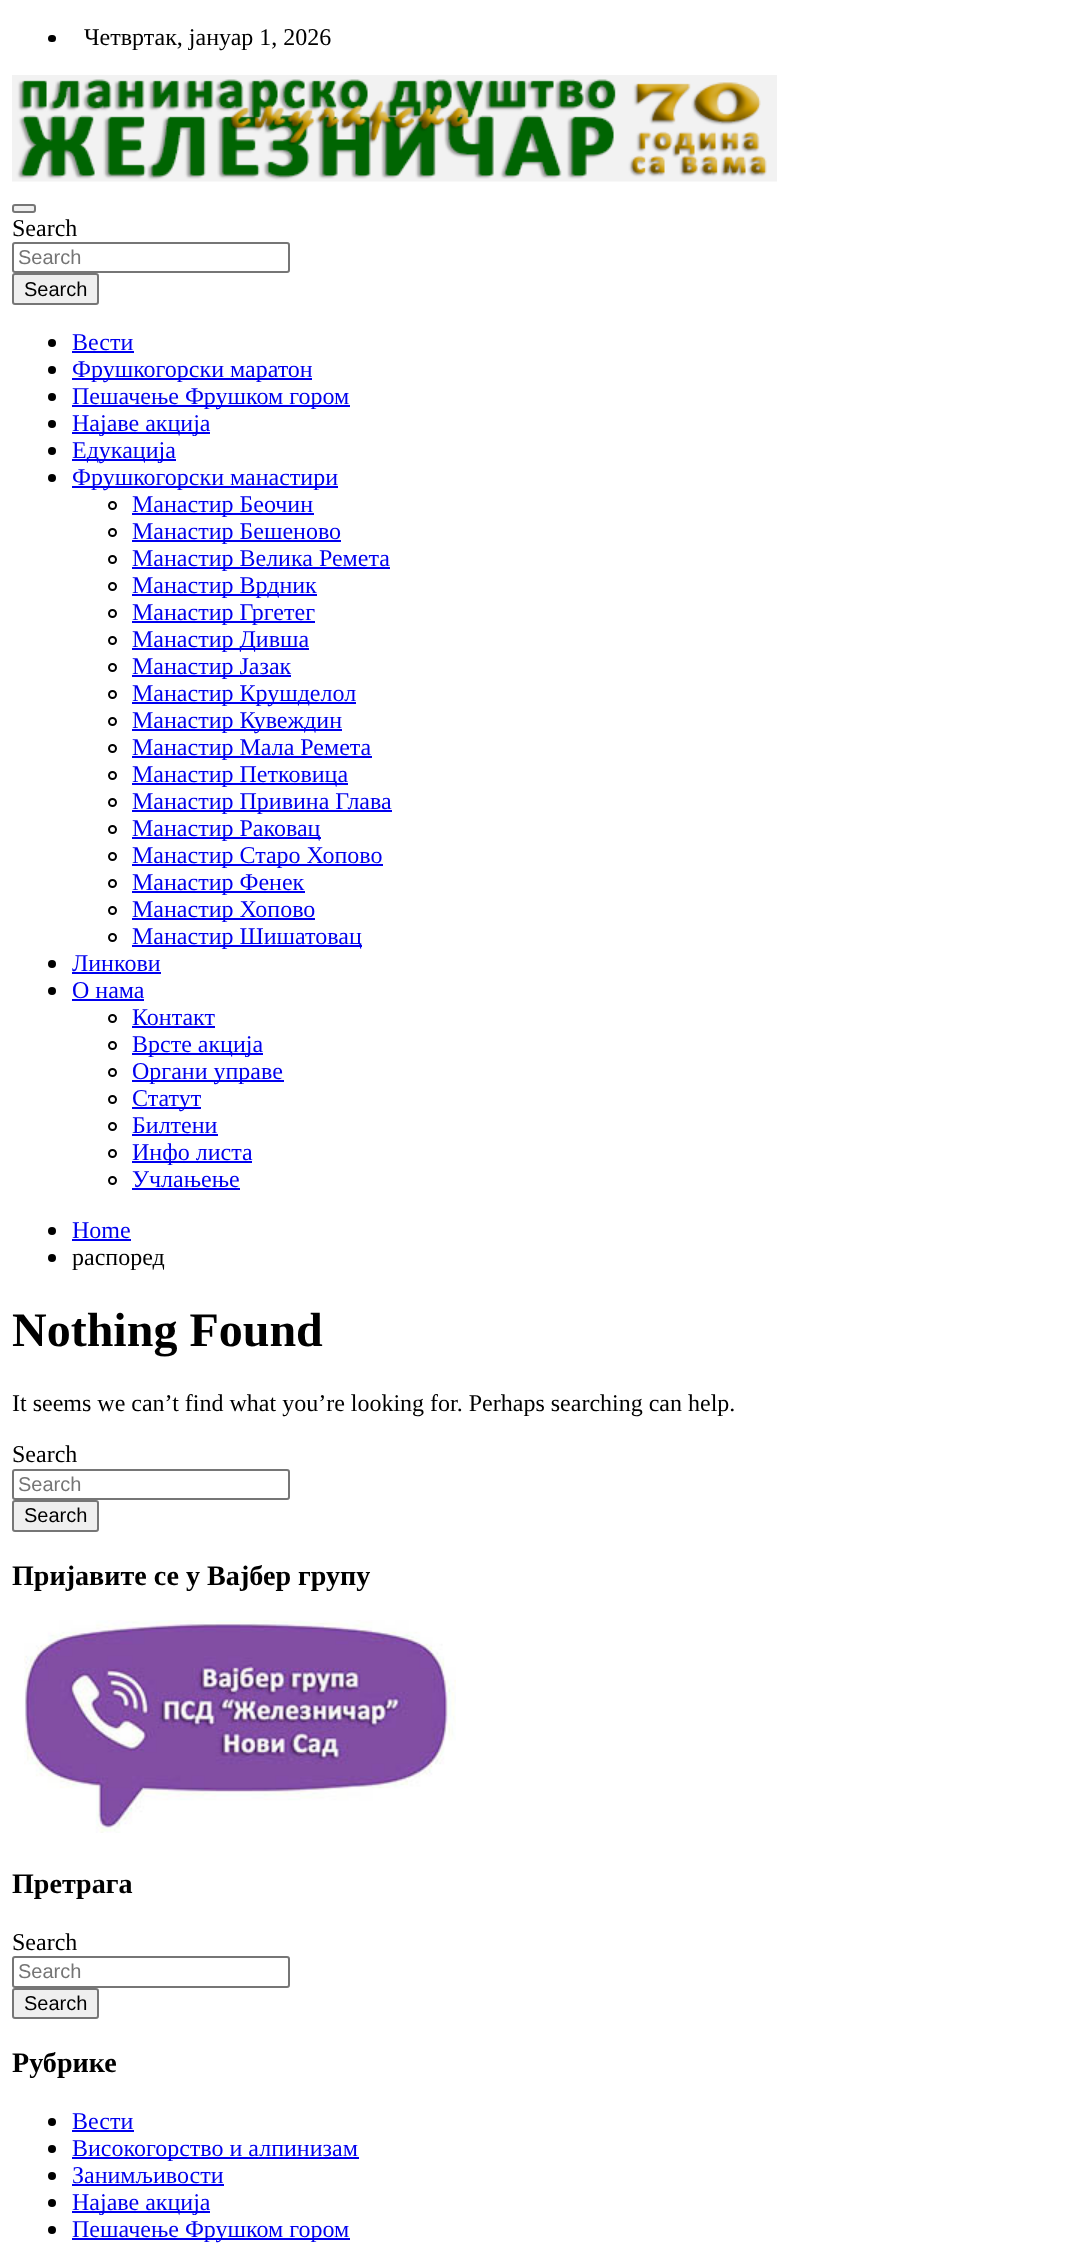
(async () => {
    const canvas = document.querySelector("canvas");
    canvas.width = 1087;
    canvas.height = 2243;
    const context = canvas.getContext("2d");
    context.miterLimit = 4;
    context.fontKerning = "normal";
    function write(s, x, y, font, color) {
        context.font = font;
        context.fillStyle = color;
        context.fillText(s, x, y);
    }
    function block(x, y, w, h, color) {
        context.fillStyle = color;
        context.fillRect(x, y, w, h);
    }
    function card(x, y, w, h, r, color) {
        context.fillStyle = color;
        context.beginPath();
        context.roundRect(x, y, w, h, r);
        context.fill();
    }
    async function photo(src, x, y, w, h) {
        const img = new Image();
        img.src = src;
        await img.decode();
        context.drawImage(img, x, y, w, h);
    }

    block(0, 0, 1087, 2243, "rgb(255, 255, 255)");
    card(48, 35, 8, 7, 3.5, "rgb(0, 0, 0)");
    write("Четвртак, јануар 1, 2026", 84, 45, "24px Liberation Serif", "rgb(0, 0, 0)");
    await photo("media/1.png", 12, 75, 765, 107);
    context.fillStyle = "rgb(239, 239, 239)";
    context.beginPath();
    context.roundRect(13, 205, 22, 7, 2);
    context.fill();
    context.strokeStyle = "rgb(118, 118, 118)";
    context.lineWidth = 2;
    context.stroke();
    write("Search", 12, 236, "24px Liberation Serif", "rgb(0, 0, 0)");
    context.beginPath();
    context.roundRect(13, 243, 276, 29, 2);
    context.stroke();
    write("Search", 18, 264, "20px Liberation Sans", "rgb(117, 117, 117)");
    context.fillStyle = "rgb(239, 239, 239)";
    context.beginPath();
    context.roundRect(13, 274, 85, 30, 2);
    context.fill();
    context.stroke();
    write("Search", 24, 296, "20px Liberation Sans", "rgb(0, 0, 0)");
    context.beginPath();
    context.arc(52, 343, 4, 0, Math.PI * 2);
    context.fill();
    write("Вести", 72, 350, "24px Liberation Serif", "rgb(0, 0, 238)");
    block(72, 351, 62, 2, "rgb(0, 0, 238)");
    context.fillStyle = "rgb(0, 0, 0)";
    context.beginPath();
    context.arc(52, 370, 4, 0, Math.PI * 2);
    context.fill();
    block(72, 378, 240, 2, "rgb(0, 0, 238)");
    write("Фрушкогорски маратон", 72, 377, "24px Liberation Serif", "rgb(0, 0, 238)");
    context.fillStyle = "rgb(0, 0, 0)";
    context.beginPath();
    context.arc(52, 397, 4, 0, Math.PI * 2);
    context.fill();
    block(72, 405, 278, 2, "rgb(0, 0, 238)");
    write("Пешачење Фрушком гором", 72, 404, "24px Liberation Serif", "rgb(0, 0, 238)");
    context.fillStyle = "rgb(0, 0, 0)";
    context.beginPath();
    context.arc(52, 424, 4, 0, Math.PI * 2);
    context.fill();
    block(72, 432, 138, 2, "rgb(0, 0, 238)");
    write("Најаве акција", 72, 431, "24px Liberation Serif", "rgb(0, 0, 238)");
    context.fillStyle = "rgb(0, 0, 0)";
    context.beginPath();
    context.arc(52, 451, 4, 0, Math.PI * 2);
    context.fill();
    block(72, 459, 104, 2, "rgb(0, 0, 238)");
    write("Едукација", 72, 458, "24px Liberation Serif", "rgb(0, 0, 238)");
    context.fillStyle = "rgb(0, 0, 0)";
    context.beginPath();
    context.arc(52, 478, 4, 0, Math.PI * 2);
    context.fill();
    block(72, 486, 266, 2, "rgb(0, 0, 238)");
    write("Фрушкогорски манастири", 72, 485, "24px Liberation Serif", "rgb(0, 0, 238)");
    context.beginPath();
    context.arc(112.5, 505.5, 3.5, 0, Math.PI * 2);
    context.strokeStyle = "rgb(0, 0, 0)";
    context.stroke();
    block(132, 513, 182, 2, "rgb(0, 0, 238)");
    write("Манастир Беочин", 132, 512, "24px Liberation Serif", "rgb(0, 0, 238)");
    context.beginPath();
    context.arc(112.5, 532.5, 3.5, 0, Math.PI * 2);
    context.stroke();
    block(132, 540, 209, 2, "rgb(0, 0, 238)");
    write("Манастир Бешеново", 132, 539, "24px Liberation Serif", "rgb(0, 0, 238)");
    context.beginPath();
    context.arc(112.5, 559.5, 3.5, 0, Math.PI * 2);
    context.stroke();
    block(132, 567, 258, 2, "rgb(0, 0, 238)");
    write("Манастир Велика Ремета", 132, 566, "24px Liberation Serif", "rgb(0, 0, 238)");
    context.beginPath();
    context.arc(112.5, 586.5, 3.5, 0, Math.PI * 2);
    context.stroke();
    block(132, 594, 185, 2, "rgb(0, 0, 238)");
    write("Манастир Врдник", 132, 593, "24px Liberation Serif", "rgb(0, 0, 238)");
    context.beginPath();
    context.arc(112.5, 613.5, 3.5, 0, Math.PI * 2);
    context.stroke();
    block(132, 621, 183, 2, "rgb(0, 0, 238)");
    write("Манастир Гргетег", 132, 620, "24px Liberation Serif", "rgb(0, 0, 238)");
    context.beginPath();
    context.arc(112.5, 640.5, 3.5, 0, Math.PI * 2);
    context.stroke();
    block(132, 648, 177, 2, "rgb(0, 0, 238)");
    write("Манастир Дивша", 132, 647, "24px Liberation Serif", "rgb(0, 0, 238)");
    context.beginPath();
    context.arc(112.5, 667.5, 3.5, 0, Math.PI * 2);
    context.stroke();
    block(132, 675, 159, 2, "rgb(0, 0, 238)");
    write("Манастир Јазак", 132, 674, "24px Liberation Serif", "rgb(0, 0, 238)");
    context.beginPath();
    context.arc(112.5, 694.5, 3.5, 0, Math.PI * 2);
    context.stroke();
    block(132, 702, 224, 2, "rgb(0, 0, 238)");
    write("Манастир Крушделол", 132, 701, "24px Liberation Serif", "rgb(0, 0, 238)");
    context.beginPath();
    context.arc(112.5, 721.5, 3.5, 0, Math.PI * 2);
    context.stroke();
    block(132, 729, 210, 2, "rgb(0, 0, 238)");
    write("Манастир Кувеждин", 132, 728, "24px Liberation Serif", "rgb(0, 0, 238)");
    context.beginPath();
    context.arc(112.5, 748.5, 3.5, 0, Math.PI * 2);
    context.stroke();
    block(132, 756, 240, 2, "rgb(0, 0, 238)");
    write("Манастир Мала Ремета", 132, 755, "24px Liberation Serif", "rgb(0, 0, 238)");
    context.beginPath();
    context.arc(112.5, 775.5, 3.5, 0, Math.PI * 2);
    context.stroke();
    block(132, 783, 216, 2, "rgb(0, 0, 238)");
    write("Манастир Петковица", 132, 782, "24px Liberation Serif", "rgb(0, 0, 238)");
    context.beginPath();
    context.arc(112.5, 802.5, 3.5, 0, Math.PI * 2);
    context.stroke();
    block(132, 810, 260, 2, "rgb(0, 0, 238)");
    write("Манастир Привина Глава", 132, 809, "24px Liberation Serif", "rgb(0, 0, 238)");
    context.beginPath();
    context.arc(112.5, 829.5, 3.5, 0, Math.PI * 2);
    context.stroke();
    block(132, 837, 189, 2, "rgb(0, 0, 238)");
    write("Манастир Раковац", 132, 836, "24px Liberation Serif", "rgb(0, 0, 238)");
    context.beginPath();
    context.arc(112.5, 856.5, 3.5, 0, Math.PI * 2);
    context.stroke();
    block(132, 864, 251, 2, "rgb(0, 0, 238)");
    write("Манастир Старо Хопово", 132, 863, "24px Liberation Serif", "rgb(0, 0, 238)");
    context.beginPath();
    context.arc(112.5, 883.5, 3.5, 0, Math.PI * 2);
    context.stroke();
    block(132, 891, 173, 2, "rgb(0, 0, 238)");
    write("Манастир Фенек", 132, 890, "24px Liberation Serif", "rgb(0, 0, 238)");
    context.beginPath();
    context.arc(112.5, 910.5, 3.5, 0, Math.PI * 2);
    context.stroke();
    block(132, 918, 183, 2, "rgb(0, 0, 238)");
    write("Манастир Хопово", 132, 917, "24px Liberation Serif", "rgb(0, 0, 238)");
    context.beginPath();
    context.arc(112.5, 937.5, 3.5, 0, Math.PI * 2);
    context.stroke();
    block(132, 945, 230, 2, "rgb(0, 0, 238)");
    write("Манастир Шишатовац", 132, 944, "24px Liberation Serif", "rgb(0, 0, 238)");
    context.fillStyle = "rgb(0, 0, 0)";
    context.beginPath();
    context.arc(52, 964, 4, 0, Math.PI * 2);
    context.fill();
    write("Линкови", 72, 971, "24px Liberation Serif", "rgb(0, 0, 238)");
    block(72, 972, 89, 2, "rgb(0, 0, 238)");
    context.fillStyle = "rgb(0, 0, 0)";
    context.beginPath();
    context.arc(52, 991, 4, 0, Math.PI * 2);
    context.fill();
    write("О нама", 72, 998, "24px Liberation Serif", "rgb(0, 0, 238)");
    block(72, 999, 72, 2, "rgb(0, 0, 238)");
    context.beginPath();
    context.arc(112.5, 1018.5, 3.5, 0, Math.PI * 2);
    context.stroke();
    write("Контакт", 132, 1025, "24px Liberation Serif", "rgb(0, 0, 238)");
    block(132, 1026, 83, 2, "rgb(0, 0, 238)");
    context.beginPath();
    context.arc(112.5, 1045.5, 3.5, 0, Math.PI * 2);
    context.stroke();
    block(132, 1053, 131, 2, "rgb(0, 0, 238)");
    write("Врсте акција", 132, 1052, "24px Liberation Serif", "rgb(0, 0, 238)");
    context.beginPath();
    context.arc(112.5, 1072.5, 3.5, 0, Math.PI * 2);
    context.stroke();
    block(132, 1080, 152, 2, "rgb(0, 0, 238)");
    write("Органи управе", 132, 1079, "24px Liberation Serif", "rgb(0, 0, 238)");
    context.beginPath();
    context.arc(112.5, 1099.5, 3.5, 0, Math.PI * 2);
    context.stroke();
    block(132, 1107, 69, 2, "rgb(0, 0, 238)");
    write("Статут", 132, 1106, "24px Liberation Serif", "rgb(0, 0, 238)");
    context.beginPath();
    context.arc(112.5, 1126.5, 3.5, 0, Math.PI * 2);
    context.stroke();
    write("Билтени", 132, 1133, "24px Liberation Serif", "rgb(0, 0, 238)");
    block(132, 1134, 86, 2, "rgb(0, 0, 238)");
    context.beginPath();
    context.arc(112.5, 1153.5, 3.5, 0, Math.PI * 2);
    context.stroke();
    block(132, 1161, 120, 2, "rgb(0, 0, 238)");
    write("Инфо листа", 132, 1160, "24px Liberation Serif", "rgb(0, 0, 238)");
    context.beginPath();
    context.arc(112.5, 1180.5, 3.5, 0, Math.PI * 2);
    context.stroke();
    write("Учлањење", 132, 1187, "24px Liberation Serif", "rgb(0, 0, 238)");
    block(132, 1188, 108, 2, "rgb(0, 0, 238)");
    context.fillStyle = "rgb(0, 0, 0)";
    context.beginPath();
    context.arc(52, 1231, 4, 0, Math.PI * 2);
    context.fill();
    write("Home", 72, 1238, "24px Liberation Serif", "rgb(0, 0, 238)");
    block(72, 1239, 59, 2, "rgb(0, 0, 238)");
    context.fillStyle = "rgb(0, 0, 0)";
    context.beginPath();
    context.arc(52, 1258, 4, 0, Math.PI * 2);
    context.fill();
    write("распоред", 72, 1265, "24px Liberation Serif", "rgb(0, 0, 0)");
    write("Nothing Found", 12, 1346, "bold 48px Liberation Serif", "rgb(0, 0, 0)");
    write("It seems we can’t find what you’re looking for. Perhaps searching can help.", 12, 1411, "24px Liberation Serif", "rgb(0, 0, 0)");
    write("Search", 12, 1462, "24px Liberation Serif", "rgb(0, 0, 0)");
    context.beginPath();
    context.roundRect(13, 1470, 276, 29, 2);
    context.strokeStyle = "rgb(118, 118, 118)";
    context.stroke();
    write("Search", 18, 1491, "20px Liberation Sans", "rgb(117, 117, 117)");
    context.fillStyle = "rgb(239, 239, 239)";
    context.beginPath();
    context.roundRect(13, 1501, 85, 30, 2);
    context.fill();
    context.stroke();
    write("Search", 24, 1522, "20px Liberation Sans", "rgb(0, 0, 0)");
    write("Пријавите се у Вајбер групу", 12, 1585, "bold 28.1px Liberation Serif", "rgb(0, 0, 0)");
    await photo("media/2.png", 24, 1620, 432, 213);
    write("Претрага", 12, 1893, "bold 28.1px Liberation Serif", "rgb(0, 0, 0)");
    write("Search", 12, 1950, "24px Liberation Serif", "rgb(0, 0, 0)");
    context.beginPath();
    context.roundRect(13, 1957, 276, 30, 2);
    context.stroke();
    write("Search", 18, 1978, "20px Liberation Sans", "rgb(117, 117, 117)");
    context.fillStyle = "rgb(239, 239, 239)";
    context.beginPath();
    context.roundRect(13, 1989, 85, 29, 2);
    context.fill();
    context.stroke();
    write("Search", 24, 2010, "20px Liberation Sans", "rgb(0, 0, 0)");
    write("Рубрике", 12, 2072, "bold 28.1px Liberation Serif", "rgb(0, 0, 0)");
    context.beginPath();
    context.arc(52, 2122, 4, 0, Math.PI * 2);
    context.fill();
    write("Вести", 72, 2129, "24px Liberation Serif", "rgb(0, 0, 238)");
    block(72, 2130, 62, 2, "rgb(0, 0, 238)");
    context.fillStyle = "rgb(0, 0, 0)";
    context.beginPath();
    context.arc(52, 2149, 4, 0, Math.PI * 2);
    context.fill();
    block(72, 2157, 287, 2, "rgb(0, 0, 238)");
    write("Високогорство и алпинизам", 72, 2156, "24px Liberation Serif", "rgb(0, 0, 238)");
    context.fillStyle = "rgb(0, 0, 0)";
    context.beginPath();
    context.arc(52, 2176, 4, 0, Math.PI * 2);
    context.fill();
    write("Занимљивости", 72, 2183, "24px Liberation Serif", "rgb(0, 0, 238)");
    block(72, 2184, 152, 2, "rgb(0, 0, 238)");
    context.fillStyle = "rgb(0, 0, 0)";
    context.beginPath();
    context.arc(52, 2203, 4, 0, Math.PI * 2);
    context.fill();
    block(72, 2211, 138, 2, "rgb(0, 0, 238)");
    write("Најаве акција", 72, 2210, "24px Liberation Serif", "rgb(0, 0, 238)");
    context.fillStyle = "rgb(0, 0, 0)";
    context.beginPath();
    context.arc(52, 2230, 4, 0, Math.PI * 2);
    context.fill();
    block(72, 2238, 278, 2, "rgb(0, 0, 238)");
    write("Пешачење Фрушком гором", 72, 2237, "24px Liberation Serif", "rgb(0, 0, 238)");
})();
